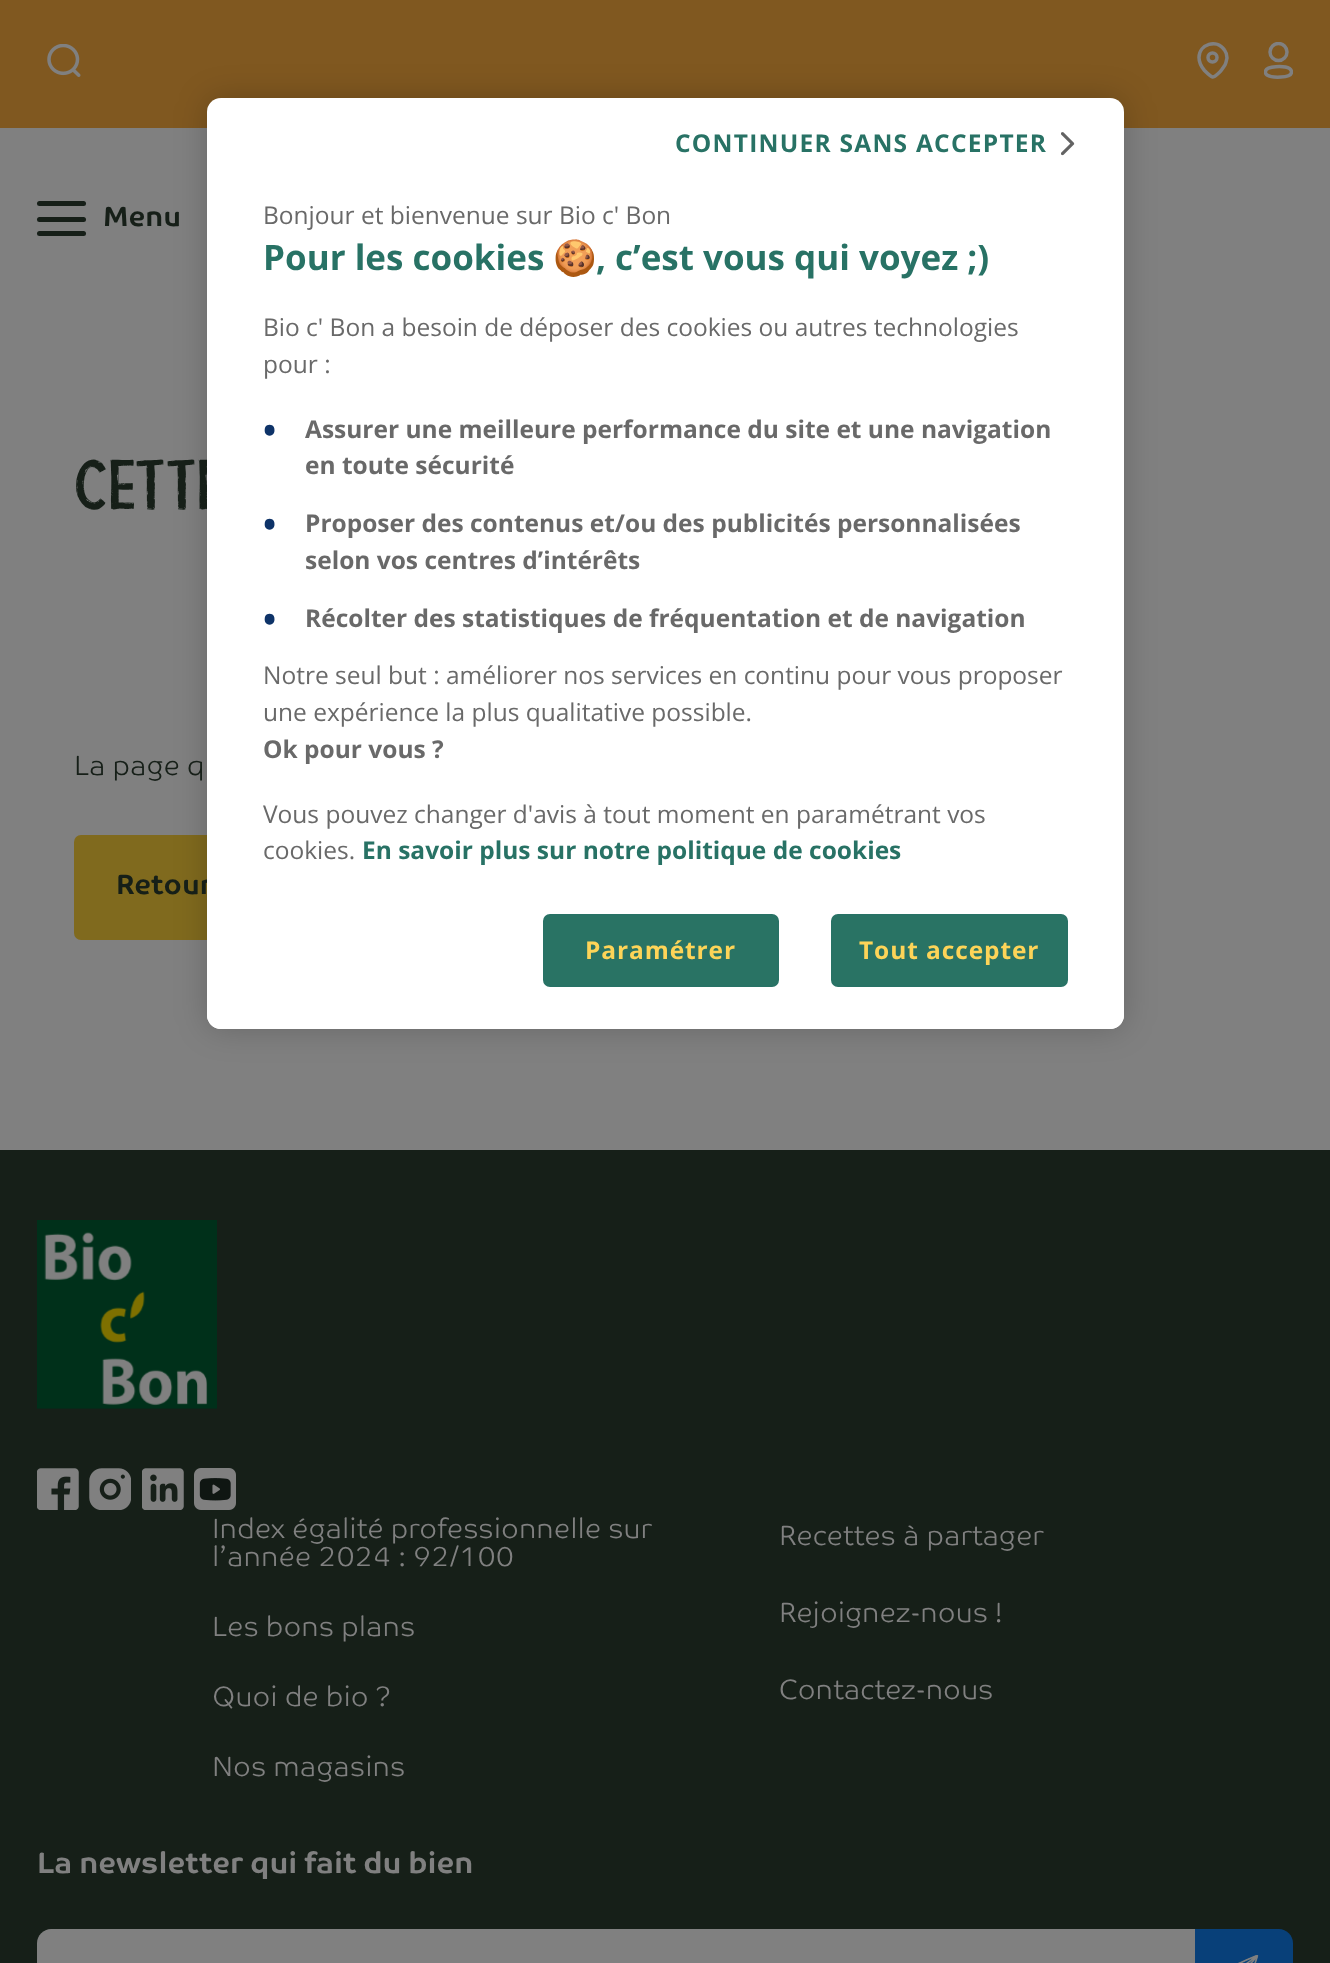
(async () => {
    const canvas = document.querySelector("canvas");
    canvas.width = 1330;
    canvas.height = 1963;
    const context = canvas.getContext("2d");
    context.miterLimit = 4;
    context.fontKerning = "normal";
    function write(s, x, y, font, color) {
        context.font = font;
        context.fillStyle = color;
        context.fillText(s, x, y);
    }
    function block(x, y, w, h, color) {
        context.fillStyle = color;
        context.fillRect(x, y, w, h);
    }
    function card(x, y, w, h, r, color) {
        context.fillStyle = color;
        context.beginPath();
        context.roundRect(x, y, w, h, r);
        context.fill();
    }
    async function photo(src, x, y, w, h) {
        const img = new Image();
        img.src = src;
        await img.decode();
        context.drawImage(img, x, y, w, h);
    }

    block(0, 0, 1330, 1963, "rgb(128, 128, 128)");
    block(0, 0, 1330, 128, "rgb(128, 88, 32)");
    card(74, 835, 325, 105, 7, "rgb(128, 106, 30)");
    context.fillStyle = "rgba(0, 0, 0, 0.2)";
    context.filter = "blur(16px)";
    context.beginPath();
    context.roundRect(207, 98, 917, 931, 14);
    context.fill();
    context.filter = "none";
    write("Cette", 74, 509, "70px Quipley", "rgb(22, 31, 24)");
    write("Retour", 116, 894, "bold 28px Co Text", "rgb(22, 31, 24)");
    card(207, 98, 917, 931, 14, "rgb(255, 255, 255)");
    context.letterSpacing = "1.25px";
    write("CONTINUER SANS ACCEPTER", 675, 152, "bold 24.5px Open Sans", "rgb(40, 114, 101)");
    await photo("media/1.png", 1061, 132, 14, 24);
    context.letterSpacing = "0px";
    write("Bonjour et bienvenue sur Bio c' Bon", 263, 224, "24.5px Open Sans", "rgb(105, 105, 105)");
    write("Pour les cookies", 263, 270, "bold 35px Open Sans", "rgb(40, 114, 101)");
    write("🍪", 553, 270, "bold 35px Noto Color Emoji", "rgb(40, 114, 101)");
    write(", c’est vous qui voyez ;)", 596, 270, "bold 35px Open Sans", "rgb(40, 114, 101)");
    write("Bio c' Bon a besoin de déposer des cookies ou autres technologies", 263, 336, "24.5px Open Sans", "rgb(105, 105, 105)");
    write("pour :", 263, 373, "24.5px Open Sans", "rgb(105, 105, 105)");
    write("•", 263, 443, "bold 35px Open Sans", "rgb(14, 51, 104)");
    write("Assurer une meilleure performance du site et une navigation", 305, 438, "bold 24.5px Open Sans", "rgb(105, 105, 105)");
    write("en toute sécurité", 305, 474, "bold 24.5px Open Sans", "rgb(105, 105, 105)");
    write("•", 263, 537, "bold 35px Open Sans", "rgb(14, 51, 104)");
    write("Proposer des contenus et/ou des publicités personnalisées", 305, 532, "bold 24.5px Open Sans", "rgb(105, 105, 105)");
    write("selon vos centres d’intérêts", 305, 569, "bold 24.5px Open Sans", "rgb(105, 105, 105)");
    write("•", 263, 632, "bold 35px Open Sans", "rgb(14, 51, 104)");
    write("Récolter des statistiques de fréquentation et de navigation", 305, 627, "bold 24.5px Open Sans", "rgb(105, 105, 105)");
    write("Notre seul but : améliorer nos services en continu pour vous proposer", 263, 684, "24.5px Open Sans", "rgb(105, 105, 105)");
    write("une expérience la plus qualitative possible.", 263, 721, "24.5px Open Sans", "rgb(105, 105, 105)");
    write("Ok pour vous ?", 263, 758, "bold 24.5px Open Sans", "rgb(105, 105, 105)");
    write("Vous pouvez changer d'avis à tout moment en paramétrant vos", 263, 823, "24.5px Open Sans", "rgb(105, 105, 105)");
    write("cookies.", 263, 859, "24.5px Open Sans", "rgb(105, 105, 105)");
    write("En savoir plus sur notre politique de cookies", 362, 859, "bold 24.5px Open Sans", "rgb(40, 114, 101)");
    context.fillStyle = "rgb(255, 255, 255)";
    context.beginPath();
    context.roundRect(207, 886, 917, 143, [0, 0, 14, 14]);
    context.fill();
    context.fillStyle = "rgb(41, 115, 100)";
    context.beginPath();
    context.roundRect(544, 915, 234, 71, 6);
    context.fill();
    context.strokeStyle = "rgb(40, 114, 101)";
    context.lineWidth = 2;
    context.stroke();
    context.letterSpacing = "0.9px";
    write("Paramétrer", 585, 959, "bold 24.5px Open Sans", "rgb(253, 212, 88)");
    context.fillStyle = "rgb(41, 115, 100)";
    context.beginPath();
    context.roundRect(832, 915, 235, 71, 6);
    context.fill();
    context.stroke();
    write("Tout accepter", 859, 959, "bold 24.5px Open Sans", "rgb(253, 212, 88)");
    await photo("media/2.png", 47, 44, 34, 33);
    context.beginPath();
    context.moveTo(1199, 57.5);
    context.bezierCurveTo(1199, 44, 1217, 38.5, 1224.5, 50);
    context.bezierCurveTo(1226, 52, 1227, 55, 1227, 58);
    context.bezierCurveTo(1226.5, 60.5, 1226, 63, 1225, 65);
    context.lineTo(1221.5, 70);
    context.bezierCurveTo(1220.5, 71.5, 1214.5, 77.5, 1212.5, 77);
    context.bezierCurveTo(1210.5, 76.5, 1206, 72, 1204.5, 70.5);
    context.bezierCurveTo(1201.5, 67, 1199, 62.5, 1199, 57.5);
    context.closePath();
    context.strokeStyle = "rgb(128, 128, 128)";
    context.lineWidth = 3.5;
    context.lineCap = "round";
    context.lineJoin = "round";
    context.stroke();
    context.beginPath();
    context.arc(1212.5, 57.5, 4.5, 0, Math.PI * 2);
    context.stroke();
    context.save();
    context.beginPath();
    context.rect(1264, 42, 29, 37);
    context.clip();
    context.beginPath();
    context.arc(1278.5, 52, 8.5, 0, Math.PI * 2);
    context.stroke();
    context.beginPath();
    context.moveTo(1265.5, 72);
    context.bezierCurveTo(1265, 65, 1285.5, 66, 1289.5, 68.5);
    context.bezierCurveTo(1291, 69.5, 1291.5, 70.5, 1291.5, 72);
    context.bezierCurveTo(1291.5, 78.5, 1271.5, 78, 1267, 75);
    context.bezierCurveTo(1266, 74, 1265, 73, 1265.5, 72);
    context.closePath();
    context.stroke();
    context.restore();
    card(37, 201, 49, 5, 2.5, "rgb(22, 31, 24)");
    card(37, 217, 49, 5, 2.5, "rgb(22, 31, 24)");
    card(37, 231, 49, 5, 2.5, "rgb(22, 31, 24)");
    context.letterSpacing = "0px";
    write("Menu", 103, 226, "bold 28px Co Text", "rgb(22, 31, 24)");
    write("La page q", 74, 775, "300 28px Co Text", "rgb(22, 31, 24)");
    block(0, 1150, 1330, 813, "rgb(22, 31, 24)");
    await photo("media/3.png", 37, 1220, 180, 189);
    await photo("media/4.png", 37, 1468, 42, 42);
    await photo("media/5.png", 89, 1468, 42, 42);
    await photo("media/6.png", 142, 1468, 42, 42);
    await photo("media/7.png", 194, 1468, 42, 42);
    write("Index égalité professionnelle sur", 212, 1538, "300 28px Co Text", "rgb(128, 128, 128)");
    write("l’année 2024 : 92/100", 212, 1566, "300 28px Co Text", "rgb(128, 128, 128)");
    write("Recettes à partager", 779, 1545, "300 28px Co Text", "rgb(128, 128, 128)");
    write("Les bons plans", 212, 1636, "300 28px Co Text", "rgb(128, 128, 128)");
    write("Rejoignez-nous !", 779, 1622, "300 28px Co Text", "rgb(128, 128, 128)");
    write("Quoi de bio ?", 212, 1706, "300 28px Co Text", "rgb(128, 128, 128)");
    write("Contactez-nous", 779, 1699, "300 28px Co Text", "rgb(128, 128, 128)");
    write("Nos magasins", 212, 1776, "300 28px Co Text", "rgb(128, 128, 128)");
    write("La newsletter qui fait du bien", 37, 1873, "bold 29.75px Co Text", "rgb(128, 128, 128)");
    context.beginPath();
    context.moveTo(51, 1929);
    context.lineTo(1195, 1929);
    context.lineTo(1195, 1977);
    context.lineTo(51, 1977);
    context.bezierCurveTo(43.5, 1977, 37, 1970.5, 37, 1963);
    context.lineTo(37, 1943);
    context.bezierCurveTo(37, 1935.5, 43.5, 1929, 51, 1929);
    context.closePath();
    context.fill();
    context.fillStyle = "rgb(8, 64, 121)";
    context.beginPath();
    context.moveTo(1195, 1929);
    context.lineTo(1279, 1929);
    context.bezierCurveTo(1286.5, 1929, 1293, 1935.5, 1293, 1943);
    context.lineTo(1293, 1963);
    context.bezierCurveTo(1293, 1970.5, 1286.5, 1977, 1279, 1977);
    context.lineTo(1195, 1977);
    context.closePath();
    context.fill();
    await photo("media/8.png", 1238, 1955, 21, 8);
})();
